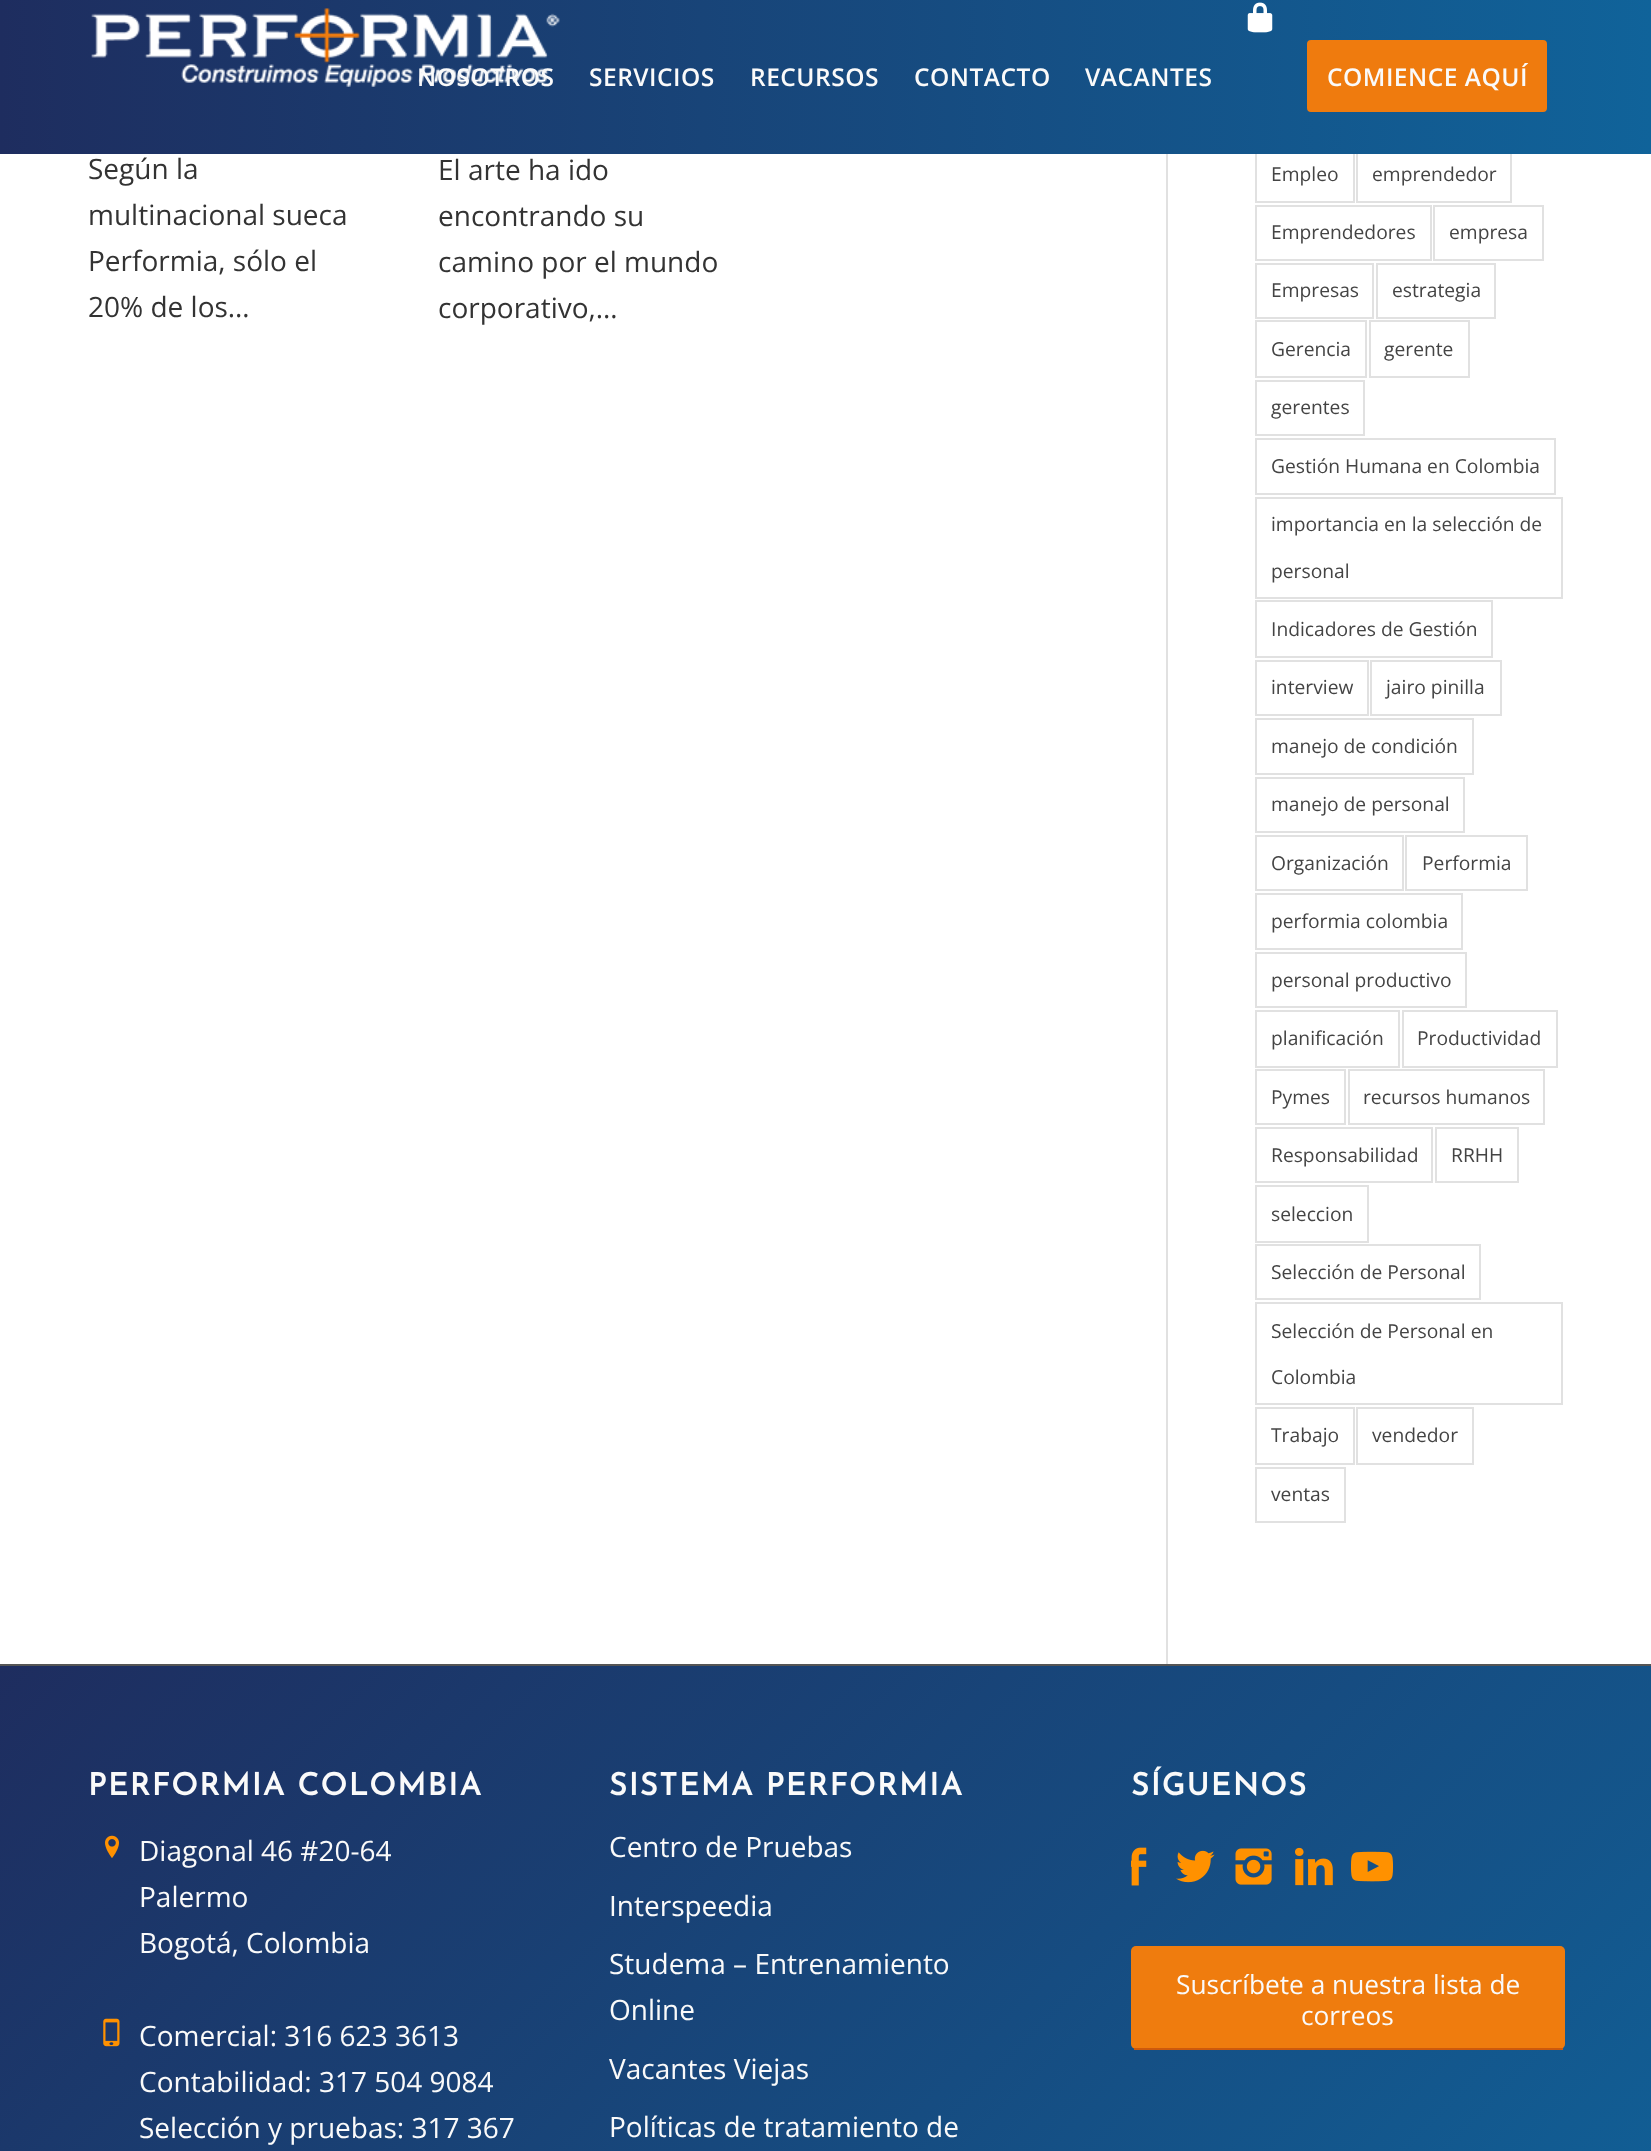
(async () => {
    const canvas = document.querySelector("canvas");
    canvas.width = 1651;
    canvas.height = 2151;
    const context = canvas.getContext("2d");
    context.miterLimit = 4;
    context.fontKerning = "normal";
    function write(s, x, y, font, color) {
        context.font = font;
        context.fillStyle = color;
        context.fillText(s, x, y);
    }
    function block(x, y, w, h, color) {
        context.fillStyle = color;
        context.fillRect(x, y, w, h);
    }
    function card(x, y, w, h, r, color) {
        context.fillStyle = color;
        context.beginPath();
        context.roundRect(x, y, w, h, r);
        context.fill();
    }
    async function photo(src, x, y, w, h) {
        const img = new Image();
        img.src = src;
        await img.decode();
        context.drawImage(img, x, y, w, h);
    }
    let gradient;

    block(0, 0, 1651, 2151, "rgb(255, 255, 255)");
    context.strokeStyle = "rgb(225, 225, 225)";
    context.lineWidth = 2;
    context.strokeRect(1256, 146, 98, 56);
    context.strokeRect(1357, 146, 154, 56);
    gradient = context.createLinearGradient(0, 77, 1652, 77);
    gradient.addColorStop(0, "rgb(30, 45, 95)");
    gradient.addColorStop(1, "rgb(16, 99, 154)");
    context.fillStyle = gradient;
    context.fillRect(0, 0, 1651, 154);
    await photo("media/1.png", 91, 8, 469, 79);
    await photo("media/2.png", 1247, 2, 26, 31);
    context.letterSpacing = "0.5px";
    write("NOSOTROS", 417, 86, "600 24.5px Open Sans", "rgb(250, 250, 250)");
    write("SERVICIOS", 589, 86, "600 24.5px Open Sans", "rgb(250, 250, 250)");
    write("RECURSOS", 750, 86, "600 24.5px Open Sans", "rgb(250, 250, 250)");
    write("CONTACTO", 914, 86, "600 24.5px Open Sans", "rgb(250, 250, 250)");
    write("VACANTES", 1085, 86, "600 24.5px Open Sans", "rgb(250, 250, 250)");
    context.fillStyle = "rgb(239, 123, 14)";
    context.beginPath();
    context.roundRect(1309, 42, 236, 68, 2);
    context.fill();
    context.strokeStyle = "rgb(239, 123, 14)";
    context.lineWidth = 4;
    context.stroke();
    write("COMIENCE AQUÍ", 1327, 86, "600 24.5px Open Sans", "rgb(250, 250, 250)");
    context.letterSpacing = "0px";
    write("Según la", 88, 179, "28px Open Sans", "rgb(51, 51, 51)");
    write("multinacional sueca", 88, 225, "28px Open Sans", "rgb(51, 51, 51)");
    write("Performia, sólo el", 88, 271, "28px Open Sans", "rgb(51, 51, 51)");
    write("20% de los…", 88, 317, "28px Open Sans", "rgb(51, 51, 51)");
    write("El arte ha ido", 438, 180, "28px Open Sans", "rgb(51, 51, 51)");
    write("encontrando su", 438, 226, "28px Open Sans", "rgb(51, 51, 51)");
    write("camino por el mundo", 438, 272, "28px Open Sans", "rgb(51, 51, 51)");
    write("corporativo,…", 438, 318, "28px Open Sans", "rgb(51, 51, 51)");
    block(1166, 154, 2, 1510, "rgb(225, 225, 225)");
    write("Empleo", 1271, 181, "19.25px Open Sans", "rgb(68, 68, 68)");
    write("emprendedor", 1372, 181, "19.25px Open Sans", "rgb(68, 68, 68)");
    context.strokeStyle = "rgb(225, 225, 225)";
    context.lineWidth = 2;
    context.strokeRect(1256, 206, 175, 54);
    write("Emprendedores", 1271, 239, "19.25px Open Sans", "rgb(68, 68, 68)");
    context.strokeRect(1434, 206, 109, 54);
    write("empresa", 1449, 239, "19.25px Open Sans", "rgb(68, 68, 68)");
    context.strokeRect(1256, 264, 117, 54);
    write("Empresas", 1271, 297, "19.25px Open Sans", "rgb(68, 68, 68)");
    context.strokeRect(1377, 264, 118, 54);
    write("estrategia", 1392, 297, "19.25px Open Sans", "rgb(68, 68, 68)");
    context.strokeRect(1256, 321, 110, 56);
    write("Gerencia", 1271, 356, "19.25px Open Sans", "rgb(68, 68, 68)");
    context.strokeRect(1370, 321, 99, 56);
    write("gerente", 1384, 356, "19.25px Open Sans", "rgb(68, 68, 68)");
    context.strokeRect(1256, 381, 108, 54);
    write("gerentes", 1271, 414, "19.25px Open Sans", "rgb(68, 68, 68)");
    context.strokeRect(1256, 439, 299, 55);
    write("Gestión Humana en Colombia", 1271, 473, "19.25px Open Sans", "rgb(68, 68, 68)");
    context.strokeRect(1256, 498, 306, 100);
    write("importancia en la selección de", 1271, 531, "19.25px Open Sans", "rgb(68, 68, 68)");
    write("personal", 1271, 578, "19.25px Open Sans", "rgb(68, 68, 68)");
    context.strokeRect(1256, 601, 236, 56);
    write("Indicadores de Gestión", 1271, 636, "19.25px Open Sans", "rgb(68, 68, 68)");
    context.strokeRect(1256, 661, 112, 54);
    write("interview", 1271, 694, "19.25px Open Sans", "rgb(68, 68, 68)");
    context.strokeRect(1371, 661, 130, 54);
    write("jairo pinilla", 1386, 694, "19.25px Open Sans", "rgb(68, 68, 68)");
    context.strokeRect(1256, 719, 217, 55);
    write("manejo de condición", 1271, 753, "19.25px Open Sans", "rgb(68, 68, 68)");
    context.strokeRect(1256, 778, 208, 54);
    write("manejo de personal", 1271, 811, "19.25px Open Sans", "rgb(68, 68, 68)");
    context.strokeRect(1256, 836, 147, 54);
    write("Organización", 1271, 870, "19.25px Open Sans", "rgb(68, 68, 68)");
    context.strokeRect(1406, 836, 121, 54);
    write("Performia", 1422, 870, "19.25px Open Sans", "rgb(68, 68, 68)");
    context.strokeRect(1256, 894, 206, 55);
    write("performia colombia", 1271, 928, "19.25px Open Sans", "rgb(68, 68, 68)");
    context.strokeRect(1256, 953, 210, 54);
    write("personal productivo", 1271, 987, "19.25px Open Sans", "rgb(68, 68, 68)");
    context.strokeRect(1256, 1011, 143, 56);
    write("planificación", 1271, 1045, "19.25px Open Sans", "rgb(68, 68, 68)");
    context.strokeRect(1403, 1011, 154, 56);
    write("Productividad", 1417, 1045, "19.25px Open Sans", "rgb(68, 68, 68)");
    context.strokeRect(1256, 1070, 89, 54);
    write("Pymes", 1271, 1104, "19.25px Open Sans", "rgb(68, 68, 68)");
    context.strokeRect(1349, 1070, 195, 54);
    write("recursos humanos", 1363, 1104, "19.25px Open Sans", "rgb(68, 68, 68)");
    context.strokeRect(1256, 1128, 176, 54);
    write("Responsabilidad", 1271, 1162, "19.25px Open Sans", "rgb(68, 68, 68)");
    context.strokeRect(1436, 1128, 82, 54);
    write("RRHH", 1451, 1162, "19.25px Open Sans", "rgb(68, 68, 68)");
    context.strokeRect(1256, 1186, 112, 56);
    write("seleccion", 1271, 1221, "19.25px Open Sans", "rgb(68, 68, 68)");
    context.strokeRect(1256, 1245, 224, 54);
    write("Selección de Personal", 1271, 1279, "19.25px Open Sans", "rgb(68, 68, 68)");
    context.strokeRect(1256, 1303, 306, 101);
    write("Selección de Personal en", 1271, 1338, "19.25px Open Sans", "rgb(68, 68, 68)");
    write("Colombia", 1271, 1384, "19.25px Open Sans", "rgb(68, 68, 68)");
    context.strokeRect(1256, 1408, 98, 56);
    write("Trabajo", 1271, 1442, "19.25px Open Sans", "rgb(68, 68, 68)");
    context.strokeRect(1357, 1408, 116, 56);
    write("vendedor", 1372, 1442, "19.25px Open Sans", "rgb(68, 68, 68)");
    context.strokeRect(1256, 1468, 89, 54);
    write("ventas", 1271, 1501, "19.25px Open Sans", "rgb(68, 68, 68)");
    gradient = context.createLinearGradient(231, 1435, 1421, 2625);
    gradient.addColorStop(0, "rgb(30, 45, 95)");
    gradient.addColorStop(1, "rgb(16, 99, 154)");
    context.fillStyle = gradient;
    context.fillRect(0, 1666, 1651, 485);
    block(0, 1664, 1651, 2, "rgb(85, 85, 85)");
    context.letterSpacing = "1.75px";
    write("PERFORMIA COLOMBIA", 88, 1795, "bold 30.75px Josefin Sans", "rgb(250, 250, 250)");
    await photo("media/3.png", 105, 1835, 14, 23);
    context.letterSpacing = "0px";
    write("Diagonal 46 #20-64", 139, 1861, "28px Open Sans", "rgb(250, 250, 250)");
    write("Palermo", 139, 1907, "28px Open Sans", "rgb(250, 250, 250)");
    write("Bogotá, Colombia", 139, 1953, "28px Open Sans", "rgb(250, 250, 250)");
    await photo("media/4.png", 103, 2018, 17, 29);
    write("Comercial: 316 623 3613", 139, 2046, "28px Open Sans", "rgb(250, 250, 250)");
    write("Contabilidad: 317 504 9084", 139, 2092, "28px Open Sans", "rgb(250, 250, 250)");
    write("Selección y pruebas: 317 367", 139, 2138, "28px Open Sans", "rgb(250, 250, 250)");
    context.letterSpacing = "1.75px";
    write("SISTEMA PERFORMIA", 609, 1795, "bold 30.75px Josefin Sans", "rgb(250, 250, 250)");
    context.letterSpacing = "0px";
    write("Centro de Pruebas", 609, 1857, "28px Open Sans", "rgb(250, 250, 250)");
    write("Interspeedia", 609, 1916, "28px Open Sans", "rgb(250, 250, 250)");
    write("Studema – Entrenamiento", 609, 1974, "28px Open Sans", "rgb(250, 250, 250)");
    write("Online", 609, 2020, "28px Open Sans", "rgb(250, 250, 250)");
    write("Vacantes Viejas", 609, 2079, "28px Open Sans", "rgb(250, 250, 250)");
    write("Políticas de tratamiento de", 609, 2137, "28px Open Sans", "rgb(250, 250, 250)");
    context.letterSpacing = "1.75px";
    write("SÍGUENOS", 1131, 1795, "bold 30.75px Josefin Sans", "rgb(250, 250, 250)");
    await photo("media/5.png", 1131, 1847, 16, 39);
    await photo("media/6.png", 1176, 1850, 39, 33);
    await photo("media/7.png", 1235, 1848, 37, 37);
    await photo("media/8.png", 1295, 1847, 38, 39);
    await photo("media/9.png", 1351, 1851, 42, 31);
    card(1131, 1946, 434, 103, 5, "rgb(239, 124, 14)");
    block(1134, 2048, 429, 2, "rgb(205, 89, 12)");
    context.letterSpacing = "0px";
    write("Suscríbete a nuestra lista de", 1176, 1994, "26.25px Open Sans", "rgb(250, 250, 250)");
    write("correos", 1301, 2025, "26.25px Open Sans", "rgb(250, 250, 250)");
})();
